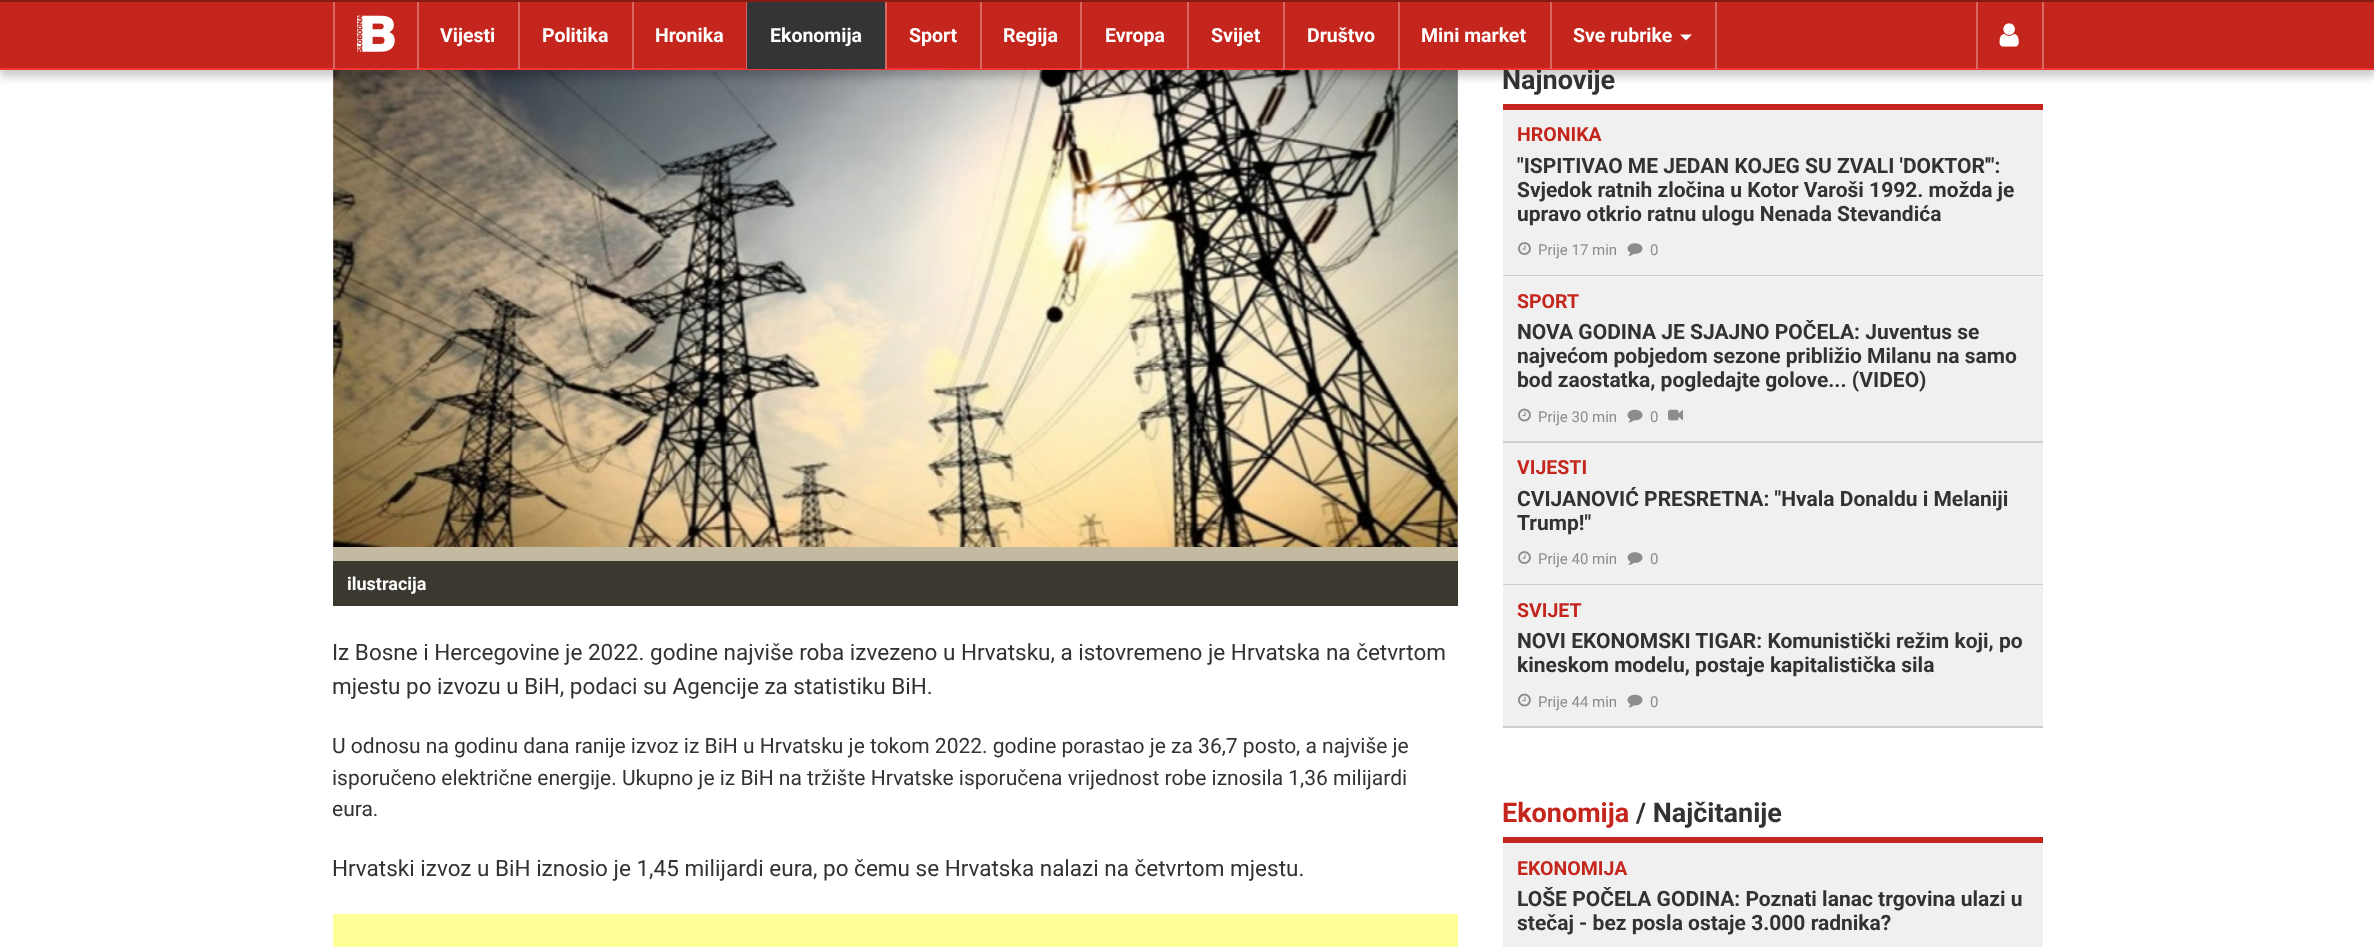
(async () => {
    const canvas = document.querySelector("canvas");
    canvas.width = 2374;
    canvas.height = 947;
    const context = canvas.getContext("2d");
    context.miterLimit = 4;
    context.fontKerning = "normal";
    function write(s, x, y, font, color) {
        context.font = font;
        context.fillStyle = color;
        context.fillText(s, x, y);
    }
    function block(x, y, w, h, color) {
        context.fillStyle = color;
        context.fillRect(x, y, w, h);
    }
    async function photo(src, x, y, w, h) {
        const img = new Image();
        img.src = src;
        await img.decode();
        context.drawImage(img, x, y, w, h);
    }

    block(0, 0, 2374, 947, "rgb(255, 255, 255)");
    block(333, 70, 1125, 491, "rgb(196, 185, 161)");
    await photo("media/3.png", 333, 70, 1125, 477);
    context.fillStyle = "rgba(0, 0, 0, 0.2)";
    context.filter = "blur(4px)";
    context.beginPath();
    context.rect(0, 8, 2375, 69);
    context.fill();
    context.filter = "none";
    block(0, 2, 2374, 66, "rgb(196, 38, 29)");
    block(1976, 2, 2, 67, "rgb(214, 103, 97)");
    block(2042, 2, 2, 67, "rgb(214, 103, 97)");
    block(1715, 2, 2, 67, "rgb(214, 103, 97)");
    block(1550, 2, 2, 67, "rgb(214, 103, 97)");
    block(0, 0, 2374, 2, "rgb(134, 26, 20)");
    write("Najnovije", 1502, 89, "bold 27px Roboto", "rgb(50, 50, 50)");
    block(0, 68, 2374, 2, "rgb(248, 50, 50)");
    block(1976, 68, 2, 1, "rgb(250, 112, 112)");
    block(2042, 68, 2, 1, "rgb(250, 112, 112)");
    block(1715, 68, 2, 1, "rgb(250, 112, 112)");
    block(1550, 68, 2, 1, "rgb(250, 112, 112)");
    block(333, 2, 2, 67, "rgba(255, 255, 255, 0.3)");
    block(417, 2, 2, 67, "rgba(255, 255, 255, 0.3)");
    await photo("media/1.png", 357, 15, 38, 37);
    block(518, 2, 2, 67, "rgba(255, 255, 255, 0.3)");
    write("Vijesti", 440, 42, "bold 19.5px Roboto", "rgb(255, 255, 255)");
    block(632, 2, 2, 67, "rgba(255, 255, 255, 0.3)");
    write("Politika", 542, 42, "bold 19.5px Roboto", "rgb(255, 255, 255)");
    block(746, 2, 1, 67, "rgba(255, 255, 255, 0.3)");
    write("Hronika", 655, 42, "bold 19.5px Roboto", "rgb(255, 255, 255)");
    block(885, 2, 2, 67, "rgba(255, 255, 255, 0.3)");
    block(747, 2, 138, 67, "rgb(51, 52, 54)");
    write("Ekonomija", 770, 42, "bold 19.5px Roboto", "rgb(255, 255, 255)");
    block(980, 2, 2, 67, "rgba(255, 255, 255, 0.3)");
    write("Sport", 909, 42, "bold 19.5px Roboto", "rgb(255, 255, 255)");
    block(1080, 2, 2, 67, "rgba(255, 255, 255, 0.3)");
    write("Regija", 1003, 42, "bold 19.5px Roboto", "rgb(255, 255, 255)");
    block(1187, 2, 2, 67, "rgba(255, 255, 255, 0.3)");
    write("Evropa", 1105, 42, "bold 19.5px Roboto", "rgb(255, 255, 255)");
    block(1283, 2, 2, 67, "rgba(255, 255, 255, 0.3)");
    write("Svijet", 1211, 42, "bold 19.5px Roboto", "rgb(255, 255, 255)");
    block(1398, 2, 2, 67, "rgba(255, 255, 255, 0.3)");
    write("Društvo", 1307, 42, "bold 19.5px Roboto", "rgb(255, 255, 255)");
    write("Mini market", 1421, 42, "bold 19.5px Roboto", "rgb(255, 255, 255)");
    write("Sve rubrike", 1573, 42, "bold 19.5px Roboto", "rgb(255, 255, 255)");
    context.beginPath();
    context.moveTo(1680, 34.5);
    context.lineTo(1692, 34.5);
    context.lineTo(1686, 40.5);
    context.closePath();
    context.fill();
    await photo("media/2.png", 1999, 23, 20, 24);
    block(333, 561, 1125, 45, "rgb(59, 56, 48)");
    write("ilustracija", 347, 590, "bold 18px Roboto", "rgb(255, 255, 255)");
    write("Iz Bosne i Hercegovine je 2022. godine najviše roba izvezeno u Hrvatsku, a istovremeno je Hrvatska na četvrtom", 332, 660, "22.5px Roboto", "rgb(50, 50, 50)");
    write("mjestu po izvozu u BiH, podaci su Agencije za statistiku BiH.", 332, 694, "22.5px Roboto", "rgb(50, 50, 50)");
    write("U odnosu na godinu dana ranije izvoz iz BiH u Hrvatsku je tokom 2022. godine porastao je za 36,7 posto, a najviše je", 332, 753, "21px Roboto", "rgb(50, 50, 50)");
    write("isporučeno električne energije. Ukupno je iz BiH na tržište Hrvatske isporučena vrijednost robe iznosila 1,36 milijardi", 332, 785, "21px Roboto", "rgb(50, 50, 50)");
    write("eura.", 332, 816, "21px Roboto", "rgb(50, 50, 50)");
    write("Hrvatski izvoz u BiH iznosio je 1,45 milijardi eura, po čemu se Hrvatska nalazi na četvrtom mjestu.", 332, 876, "22.5px Roboto", "rgb(50, 50, 50)");
    block(333, 914, 1125, 33, "rgb(255, 255, 153)");
    block(1503, 104, 540, 6, "rgb(196, 38, 29)");
    block(1503, 110, 540, 165, "rgb(240, 240, 240)");
    block(1503, 275, 540, 1, "rgb(204, 206, 212)");
    write("HRONIKA", 1517, 141, "bold 19.5px Roboto", "rgb(196, 38, 29)");
    write("\"ISPITIVAO ME JEDAN KOJEG SU ZVALI 'DOKTOR'\":", 1517, 173, "bold 21px Roboto", "rgb(50, 50, 50)");
    write("Svjedok ratnih zločina u Kotor Varoši 1992. možda je", 1517, 197, "bold 21px Roboto", "rgb(50, 50, 50)");
    write("upravo otkrio ratnu ulogu Nenada Stevandića", 1517, 221, "bold 21px Roboto", "rgb(50, 50, 50)");
    await photo("media/4.png", 1518, 242, 13, 13);
    write("Prije 17 min", 1538, 255, "15px Roboto", "rgb(140, 140, 140)");
    await photo("media/5.png", 1627, 243, 16, 13);
    write("0", 1650, 255, "15px Roboto", "rgb(140, 140, 140)");
    block(1503, 276, 540, 165, "rgb(240, 240, 240)");
    block(1503, 441, 540, 2, "rgb(204, 206, 212)");
    write("SPORT", 1517, 308, "bold 19.5px Roboto", "rgb(196, 38, 29)");
    write("NOVA GODINA JE SJAJNO POČELA: Juventus se", 1517, 339, "bold 21px Roboto", "rgb(50, 50, 50)");
    write("najvećom pobjedom sezone približio Milanu na samo", 1517, 363, "bold 21px Roboto", "rgb(50, 50, 50)");
    write("bod zaostatka, pogledajte golove... (VIDEO)", 1517, 387, "bold 21px Roboto", "rgb(50, 50, 50)");
    await photo("media/6.png", 1518, 408, 13, 14);
    write("Prije 30 min", 1538, 422, "15px Roboto", "rgb(140, 140, 140)");
    await photo("media/7.png", 1627, 409, 16, 14);
    write("0", 1650, 422, "15px Roboto", "rgb(140, 140, 140)");
    await photo("media/8.png", 1668, 409, 15, 12);
    block(1503, 443, 540, 141, "rgb(240, 240, 240)");
    block(1503, 584, 540, 1, "rgb(204, 206, 212)");
    write("VIJESTI", 1517, 474, "bold 19.5px Roboto", "rgb(196, 38, 29)");
    write("CVIJANOVIĆ PRESRETNA: \"Hvala Donaldu i Melaniji", 1517, 506, "bold 21px Roboto", "rgb(50, 50, 50)");
    write("Trump!\"", 1517, 530, "bold 21px Roboto", "rgb(50, 50, 50)");
    await photo("media/4.png", 1518, 551, 13, 13);
    write("Prije 40 min", 1538, 564, "15px Roboto", "rgb(140, 140, 140)");
    await photo("media/5.png", 1627, 552, 16, 13);
    write("0", 1650, 564, "15px Roboto", "rgb(140, 140, 140)");
    block(1503, 585, 540, 141, "rgb(240, 240, 240)");
    block(1503, 726, 540, 2, "rgb(204, 206, 212)");
    write("SVIJET", 1517, 617, "bold 19.5px Roboto", "rgb(196, 38, 29)");
    write("NOVI EKONOMSKI TIGAR: Komunistički režim koji, po", 1517, 648, "bold 21px Roboto", "rgb(50, 50, 50)");
    write("kineskom modelu, postaje kapitalistička sila", 1517, 672, "bold 21px Roboto", "rgb(50, 50, 50)");
    await photo("media/6.png", 1518, 693, 13, 14);
    write("Prije 44 min", 1538, 707, "15px Roboto", "rgb(140, 140, 140)");
    await photo("media/7.png", 1627, 694, 16, 14);
    write("0", 1650, 707, "15px Roboto", "rgb(140, 140, 140)");
    block(1503, 837, 540, 6, "rgb(196, 38, 29)");
    write("Ekonomija", 1502, 822, "bold 27px Roboto", "rgb(196, 38, 29)");
    write("/ Najčitanije", 1636, 822, "bold 27px Roboto", "rgb(50, 50, 50)");
    block(1503, 843, 540, 104, "rgb(240, 240, 240)");
    write("EKONOMIJA", 1517, 875, "bold 19.5px Roboto", "rgb(196, 38, 29)");
    write("LOŠE POČELA GODINA: Poznati lanac trgovina ulazi u", 1517, 906, "bold 21px Roboto", "rgb(50, 50, 50)");
    write("stečaj - bez posla ostaje 3.000 radnika?", 1517, 930, "bold 21px Roboto", "rgb(50, 50, 50)");
})();
